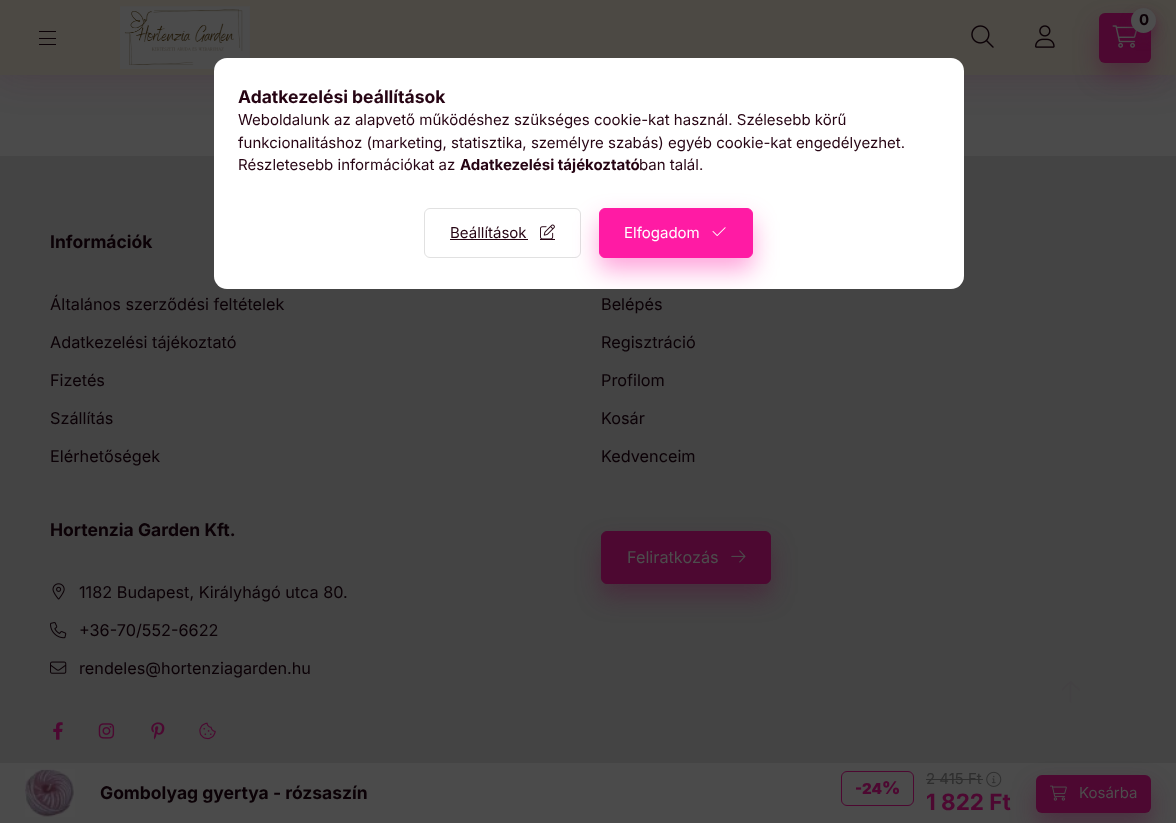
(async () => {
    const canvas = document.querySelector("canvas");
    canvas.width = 1176;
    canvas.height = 823;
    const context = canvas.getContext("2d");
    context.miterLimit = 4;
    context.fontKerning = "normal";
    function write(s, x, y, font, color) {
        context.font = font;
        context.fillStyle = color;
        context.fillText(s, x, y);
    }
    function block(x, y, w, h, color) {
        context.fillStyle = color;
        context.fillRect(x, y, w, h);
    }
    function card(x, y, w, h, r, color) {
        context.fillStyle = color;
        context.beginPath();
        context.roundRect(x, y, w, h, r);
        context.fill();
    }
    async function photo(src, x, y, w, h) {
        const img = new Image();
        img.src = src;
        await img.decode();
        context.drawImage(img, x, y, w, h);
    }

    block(0, 0, 1176, 823, "rgb(75, 75, 75)");
    context.fillStyle = "rgba(77, 8, 49, 0.2)";
    context.filter = "blur(19px)";
    context.beginPath();
    context.rect(0, 0, 1176, 75);
    context.fill();
    context.filter = "none";
    block(0, 0, 1176, 75, "rgb(76, 73, 68)");
    block(39, 31, 17, 1, "rgb(11, 1, 6)");
    block(39, 38, 17, 1, "rgb(11, 1, 6)");
    block(39, 44, 17, 1, "rgb(11, 1, 6)");
    await photo("media/1.png", 120, 6, 130, 63);
    context.fillStyle = "rgba(77, 8, 49, 0.4)";
    context.filter = "blur(12.5px)";
    context.beginPath();
    context.roundRect(1099, 25, 52, 50, 6);
    context.fill();
    context.filter = "none";
    card(1099, 13, 52, 50, 6, "rgb(77, 8, 49)");
    await photo("media/2.png", 1112, 25, 25, 23);
    context.fillStyle = "rgba(77, 8, 49, 0.4)";
    context.filter = "blur(6px)";
    context.beginPath();
    context.roundRect(1131, 14, 25, 25, 12.5);
    context.fill();
    context.filter = "none";
    context.fillStyle = "rgb(77, 77, 77)";
    context.beginPath();
    context.arc(1143.5, 20.5, 12.5, 0, Math.PI * 2);
    context.fill();
    write("0", 1139, 25, "bold 15px Inter", "rgb(11, 1, 6)");
    await photo("media/3.png", 971, 25, 23, 23);
    await photo("media/4.png", 1035, 25, 20, 23);
    block(0, 156, 1176, 607, "rgb(68, 68, 68)");
    write("Információk", 50, 248, "bold 17.5px Inter", "rgb(11, 1, 6)");
    write("Általános szerződési feltételek", 50, 310, "16.25px Inter", "rgb(11, 1, 6)");
    write("Adatkezelési tájékoztató", 50, 348, "16.25px Inter", "rgb(11, 1, 6)");
    write("Fizetés", 50, 386, "16.25px Inter", "rgb(11, 1, 6)");
    write("Szállítás", 50, 424, "16.25px Inter", "rgb(11, 1, 6)");
    write("Elérhetőségek", 50, 462, "16.25px Inter", "rgb(11, 1, 6)");
    write("Belépés", 601, 310, "16.25px Inter", "rgb(11, 1, 6)");
    write("Regisztráció", 601, 348, "16.25px Inter", "rgb(11, 1, 6)");
    write("Profilom", 601, 386, "16.25px Inter", "rgb(11, 1, 6)");
    write("Kosár", 601, 424, "16.25px Inter", "rgb(11, 1, 6)");
    write("Kedvenceim", 601, 462, "16.25px Inter", "rgb(11, 1, 6)");
    write("Hortenzia Garden Kft.", 50, 536, "bold 17.5px Inter", "rgb(11, 1, 6)");
    await photo("media/5.png", 52, 583, 13, 17);
    write("1182 Budapest, Királyhágó utca 80.", 79, 598, "16.25px Inter", "rgb(11, 1, 6)");
    await photo("media/6.png", 50, 622, 17, 17);
    write("+36-70/552-6622", 79, 636, "16.25px Inter", "rgb(11, 1, 6)");
    await photo("media/7.png", 50, 661, 17, 13);
    write("rendeles@hortenziagarden.hu", 79, 674, "16.25px Inter", "rgb(11, 1, 6)");
    await photo("media/8.png", 53, 722, 10, 18);
    await photo("media/9.png", 98, 723, 17, 16);
    await photo("media/10.png", 151, 722, 14, 18);
    await photo("media/11.png", 199, 722, 17, 18);
    context.fillStyle = "rgba(77, 8, 49, 0.4)";
    context.filter = "blur(12.5px)";
    context.beginPath();
    context.roundRect(601, 544, 170, 52, 6);
    context.fill();
    context.filter = "none";
    context.fillStyle = "rgb(77, 8, 49)";
    context.beginPath();
    context.roundRect(601.5, 531.5, 169, 52, 5.5);
    context.fill();
    context.strokeStyle = "rgb(77, 8, 49)";
    context.stroke();
    write("Feliratkozás", 627, 563, "16.25px Inter", "rgb(77, 77, 77)");
    await photo("media/12.png", 731, 550, 15, 13);
    await photo("media/13.png", 25, 769, 50, 48);
    write("Gombolyag gyertya - rózsaszín", 100, 799, "bold 17.5px Inter", "rgb(11, 1, 6)");
    context.beginPath();
    context.roundRect(841.5, 771.5, 72, 34, 5.5);
    context.stroke();
    write("-24", 855, 794, "900 15px Inter", "rgb(77, 8, 49)");
    write("%", 882, 794, "900 17.5px Inter", "rgb(77, 8, 49)");
    write("2 415 Ft", 926, 784, "15px Inter", "rgb(46, 46, 46)");
    block(926, 779, 57, 1, "rgb(46, 46, 46)");
    await photo("media/14.png", 986, 771, 16, 16);
    write("1 822 Ft", 926, 810, "bold 22.5px Inter", "rgb(77, 8, 49)");
    context.fillStyle = "rgba(77, 8, 49, 0.4)";
    context.filter = "blur(12.5px)";
    context.beginPath();
    context.roundRect(1036, 788, 115, 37, 6);
    context.fill();
    context.filter = "none";
    card(1036, 775, 115, 38, 6, "rgb(77, 8, 49)");
    await photo("media/15.png", 1050, 785, 17, 16);
    write("Kosárba", 1079, 798, "15px Inter", "rgb(77, 77, 77)");
    card(214, 58, 750, 231, 13, "rgb(255, 255, 255)");
    write("Adatkezelési beállítások", 238, 103, "bold 17.5px Inter", "rgb(38, 4, 19)");
    write("Weboldalunk az alapvető működéshez szükséges cookie-kat használ. Szélesebb körű", 238, 125, "15px Inter", "rgb(38, 4, 19)");
    write("funkcionalitáshoz (marketing, statisztika, személyre szabás) egyéb cookie-kat engedélyezhet.", 238, 148, "15px Inter", "rgb(38, 4, 19)");
    write("Részletesebb információkat az", 238, 170, "15px Inter", "rgb(38, 4, 19)");
    write("Adatkezelési tájékoztató", 460, 170, "bold 15px Inter", "rgb(38, 4, 19)");
    write("ban talál.", 639, 170, "15px Inter", "rgb(38, 4, 19)");
    context.beginPath();
    context.roundRect(424.5, 208.5, 156, 49, 5.5);
    context.strokeStyle = "rgb(225, 225, 225)";
    context.stroke();
    write("Beállítások", 450, 238, "15px Inter", "rgb(38, 4, 19)");
    block(450, 239, 78, 1, "rgb(38, 4, 19)");
    await photo("media/16.png", 540, 224, 15, 15);
    block(540, 239, 15, 1, "rgb(38, 4, 19)");
    context.save();
    context.beginPath();
    context.roundRect(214, 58, 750, 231, 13);
    context.clip();
    context.fillStyle = "rgba(255, 27, 164, 0.4)";
    context.filter = "blur(12.5px)";
    context.beginPath();
    context.roundRect(599, 220, 154, 50, 6);
    context.fill();
    context.filter = "none";
    context.restore();
    context.fillStyle = "rgb(255, 27, 164)";
    context.beginPath();
    context.roundRect(599.5, 208.5, 153, 49, 5.5);
    context.fill();
    context.strokeStyle = "rgb(255, 27, 164)";
    context.stroke();
    write("Elfogadom", 624, 238, "15px Inter", "rgb(255, 255, 255)");
    await photo("media/17.png", 712, 227, 14, 9);
    await photo("media/18.png", 1062, 681, 18, 22);
})();
